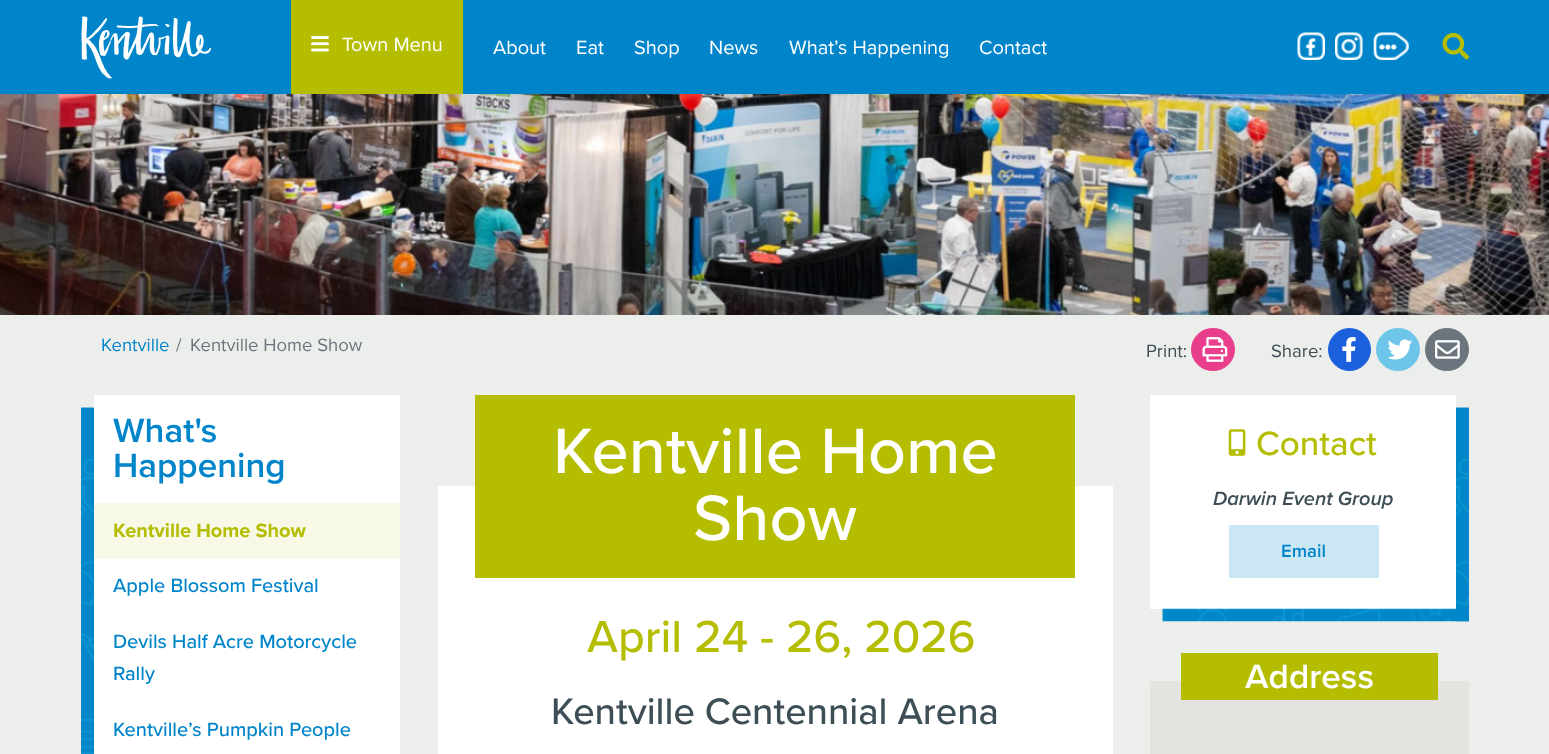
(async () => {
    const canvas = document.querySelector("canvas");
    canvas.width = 1549;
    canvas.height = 754;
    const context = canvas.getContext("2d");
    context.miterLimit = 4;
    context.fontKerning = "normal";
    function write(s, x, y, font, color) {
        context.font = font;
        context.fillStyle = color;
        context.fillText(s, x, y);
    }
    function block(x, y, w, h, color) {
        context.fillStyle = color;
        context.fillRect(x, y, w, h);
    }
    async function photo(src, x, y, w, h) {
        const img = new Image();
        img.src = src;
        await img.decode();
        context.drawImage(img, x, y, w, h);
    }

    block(0, 0, 1549, 754, "rgb(236, 238, 235)");
    block(0, 0, 1549, 94, "rgb(0, 133, 202)");
    await photo("media/1.png", 81, 16, 130, 63);
    block(291, 0, 172, 94, "rgb(181, 189, 0)");
    await photo("media/2.png", 311, 36, 18, 16);
    write("Town Menu", 342, 51, "20px Proxima Nova", "rgb(255, 255, 255)");
    write("About", 493, 54, "20px Proxima Nova", "rgb(255, 255, 255)");
    write("Eat", 576, 54, "20px Proxima Nova", "rgb(255, 255, 255)");
    write("Shop", 634, 54, "20px Proxima Nova", "rgb(255, 255, 255)");
    write("News", 709, 54, "20px Proxima Nova", "rgb(255, 255, 255)");
    write("What’s Happening", 789, 54, "20px Proxima Nova", "rgb(255, 255, 255)");
    write("Contact", 979, 54, "20px Proxima Nova", "rgb(255, 255, 255)");
    await photo("media/3.png", 1297, 32, 28, 28);
    await photo("media/4.png", 1335, 32, 28, 28);
    await photo("media/5.png", 1373, 32, 36, 28);
    await photo("media/6.png", 1442, 32, 28, 28);
    await photo("media/7.png", 0, 94, 1549, 221);
    write("Kentville", 101, 351, "18.5px Proxima Nova", "rgb(0, 133, 202)");
    write("/", 176, 351, "18.5px Proxima Nova", "rgb(108, 117, 125)");
    write("Kentville Home Show", 190, 351, "18.5px Proxima Nova", "rgb(108, 117, 125)");
    write("Print:", 1146, 357, "18.5px Proxima Nova", "rgb(62, 78, 86)");
    context.fillStyle = "rgb(232, 62, 140)";
    context.beginPath();
    context.roundRect(1191.5, 328.5, 43, 42, 21);
    context.fill();
    context.strokeStyle = "rgb(232, 62, 140)";
    context.stroke();
    await photo("media/8.png", 1202, 337, 26, 25);
    write("Share:", 1271, 357, "18.5px Proxima Nova", "rgb(62, 78, 86)");
    context.fillStyle = "rgb(27, 95, 220)";
    context.beginPath();
    context.arc(1349.5, 349.5, 21, 0, Math.PI * 2);
    context.fill();
    context.strokeStyle = "rgb(27, 95, 220)";
    context.stroke();
    await photo("media/9.png", 1342, 337, 14, 25);
    context.fillStyle = "rgb(110, 197, 234)";
    context.beginPath();
    context.roundRect(1376.5, 328.5, 43, 42, 21);
    context.fill();
    context.strokeStyle = "rgb(110, 197, 234)";
    context.stroke();
    await photo("media/10.png", 1387, 339, 26, 21);
    context.fillStyle = "rgb(108, 117, 125)";
    context.beginPath();
    context.roundRect(1425.5, 328.5, 43, 42, 21);
    context.fill();
    context.strokeStyle = "rgb(108, 117, 125)";
    context.stroke();
    await photo("media/11.png", 1435, 340, 25, 19);
    block(94, 395, 306, 359, "rgb(255, 255, 255)");
    block(81, 408, 13, 346, "rgb(0, 133, 202)");
    await photo("media/12.png", 81, 407, 13, 347);
    write("What's", 113, 442, "600 35px Proxima Nova", "rgb(0, 133, 202)");
    write("Happening", 113, 477, "600 35px Proxima Nova", "rgb(0, 133, 202)");
    block(94, 503, 306, 56, "rgb(247, 248, 229)");
    write("Kentville Home Show", 113, 537, "bold 20px Proxima Nova", "rgb(181, 189, 0)");
    write("Apple Blossom Festival", 113, 592, "500 20px Proxima Nova", "rgb(0, 133, 202)");
    write("Devils Half Acre Motorcycle", 113, 648, "500 20px Proxima Nova", "rgb(0, 133, 202)");
    write("Rally", 113, 680, "500 20px Proxima Nova", "rgb(0, 133, 202)");
    write("Kentville’s Pumpkin People", 113, 736, "500 20px Proxima Nova", "rgb(0, 133, 202)");
    block(438, 486, 675, 268, "rgb(255, 255, 255)");
    block(475, 395, 600, 183, "rgb(181, 189, 0)");
    write("Kentville Home", 553, 473, "500 66.5px Proxima Nova", "rgb(255, 255, 255)");
    write("Show", 693, 540, "500 66.5px Proxima Nova", "rgb(255, 255, 255)");
    write("April 24 - 26, 2026", 587, 652, "500 46.5px Proxima Nova", "rgb(181, 189, 0)");
    write("Kentville Centennial Arena", 551, 724, "500 38.25px Proxima Nova", "rgb(62, 78, 86)");
    block(1150, 395, 306, 214, "rgb(255, 255, 255)");
    await photo("media/13.png", 1228, 429, 18, 27);
    write("Contact", 1256, 455, "500 35px Proxima Nova", "rgb(181, 189, 0)");
    await photo("media/15.png", 1162, 608, 307, 14);
    block(1456, 408, 13, 213, "rgb(0, 133, 202)");
    await photo("media/14.png", 1456, 407, 13, 215);
    write("Darwin Event Group", 1213, 505, "italic 600 20px Proxima Nova", "rgb(62, 78, 86)");
    block(1229, 525, 150, 53, "rgb(204, 231, 244)");
    write("Email", 1281, 557, "600 18.5px Proxima Nova", "rgb(0, 133, 202)");
    block(1150, 681, 319, 73, "rgb(229, 227, 223)");
    block(1181, 653, 257, 47, "rgb(181, 189, 0)");
    write("Address", 1245, 688, "600 35px Proxima Nova", "rgb(255, 255, 255)");
})();
